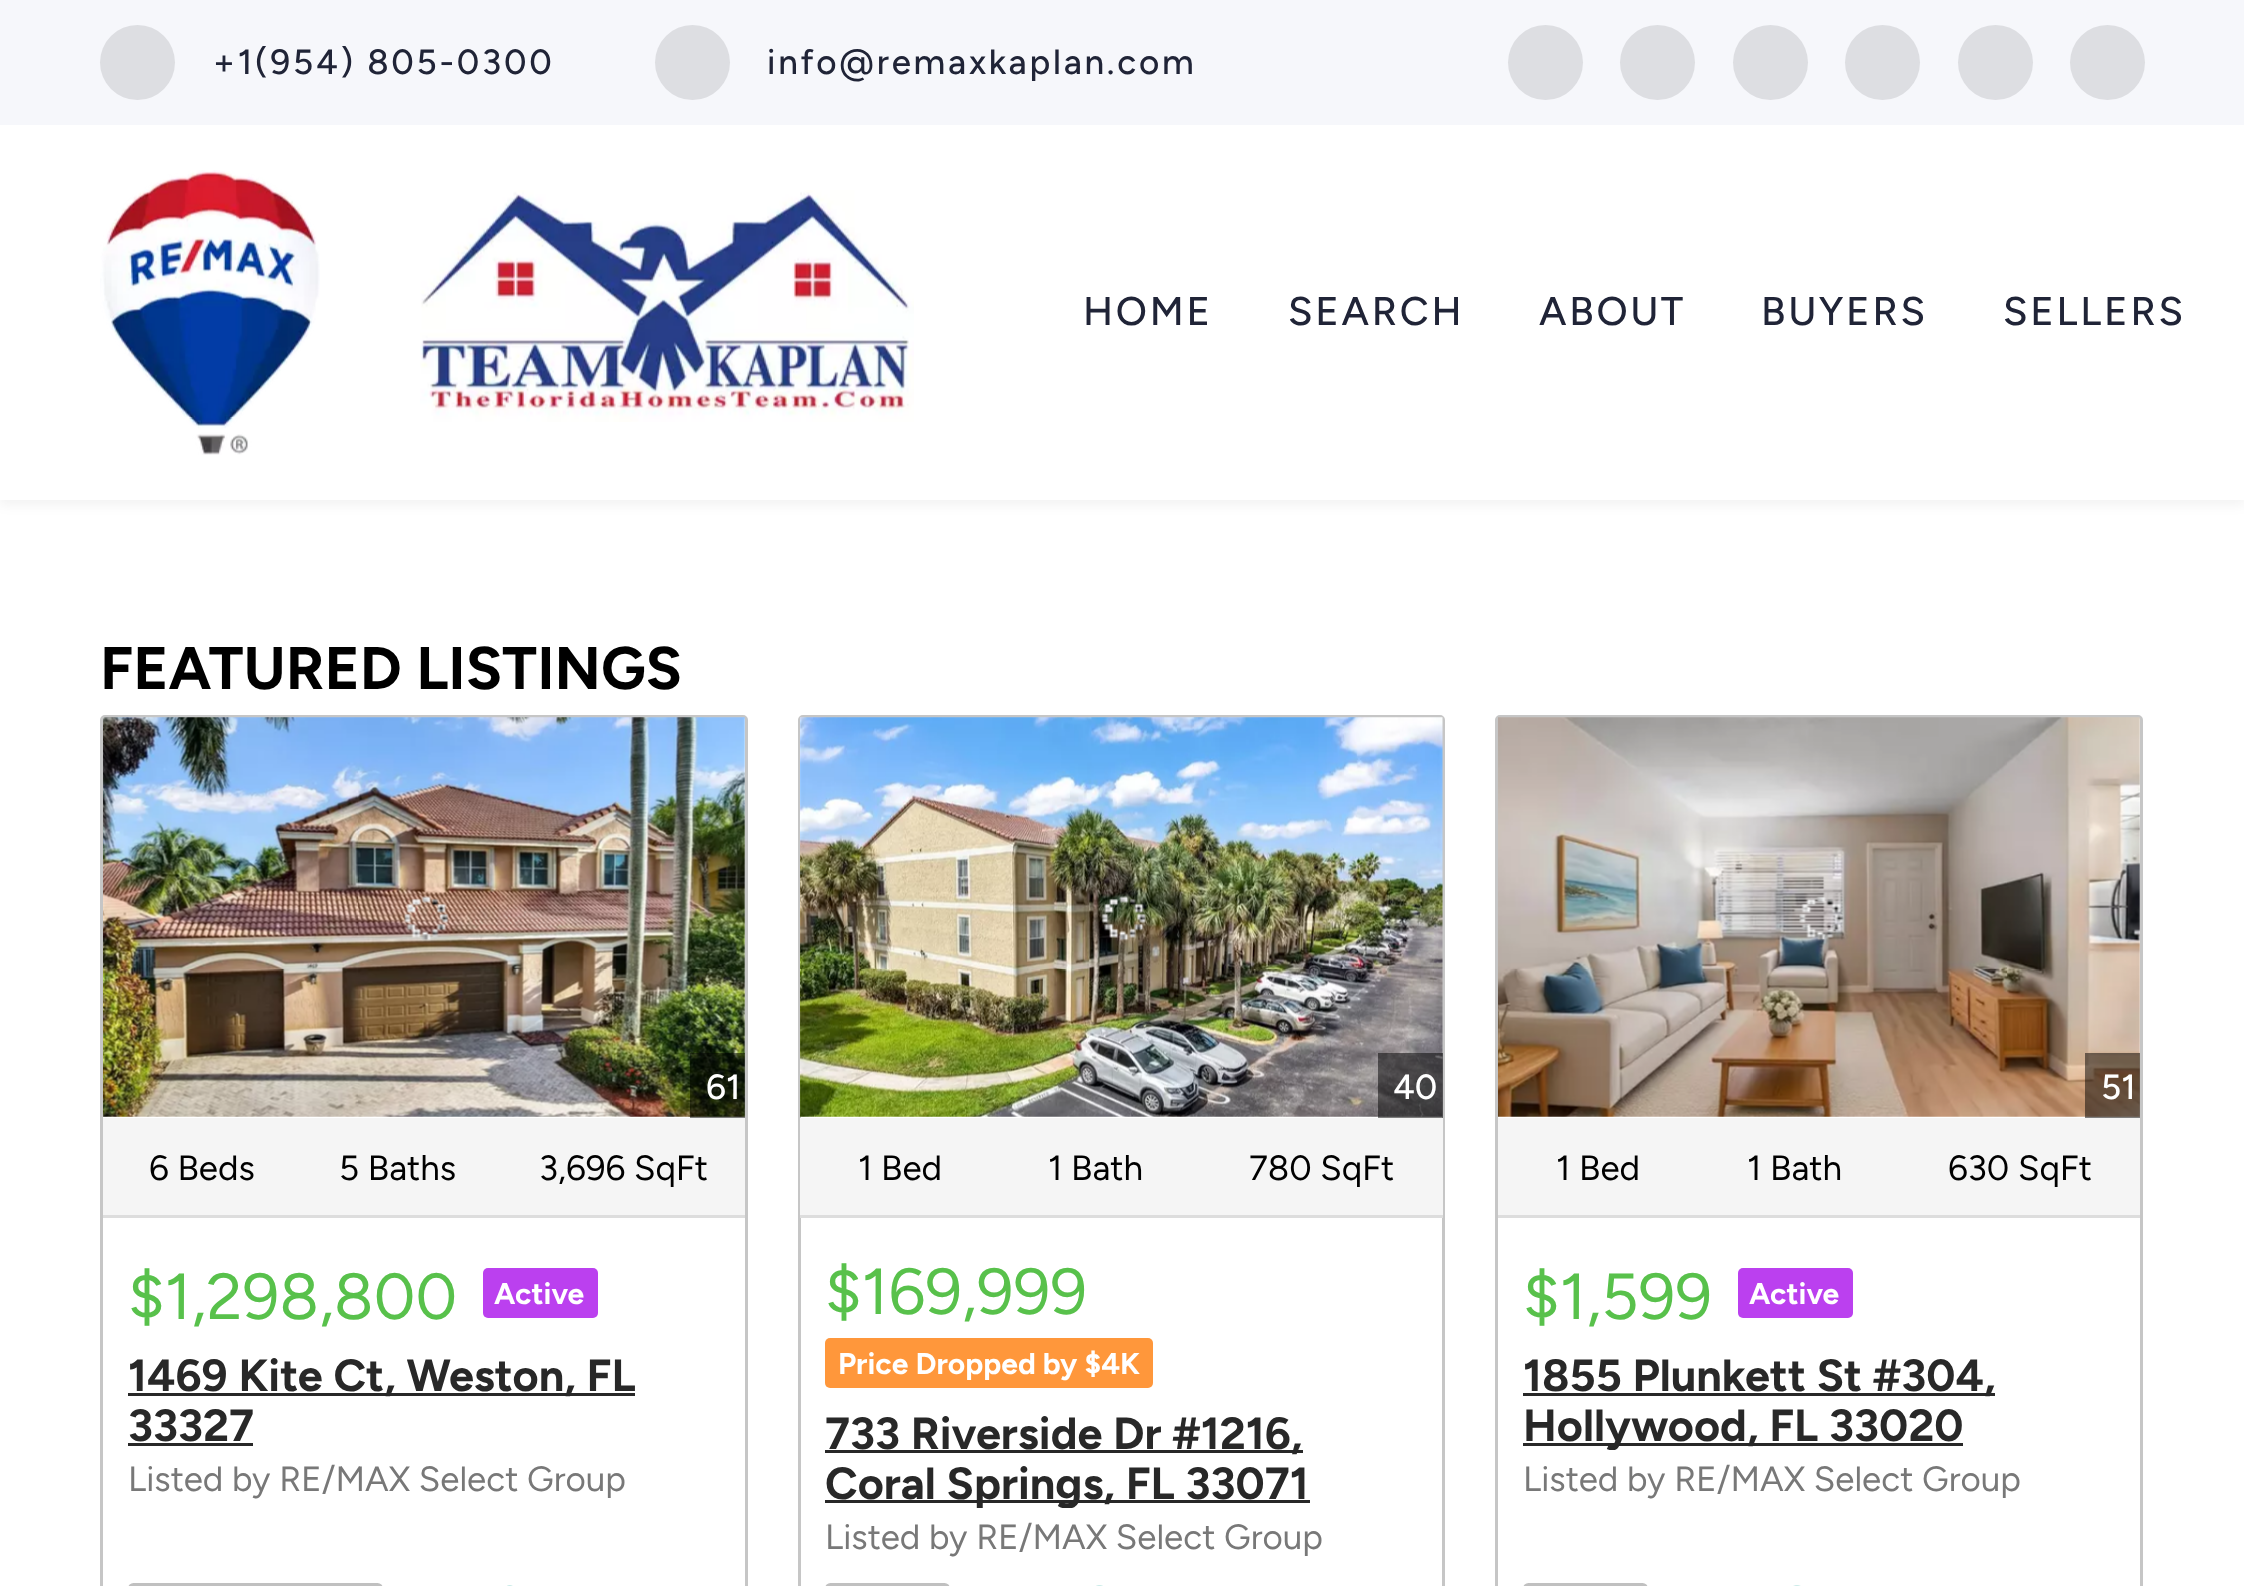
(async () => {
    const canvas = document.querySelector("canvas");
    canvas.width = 2244;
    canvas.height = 1586;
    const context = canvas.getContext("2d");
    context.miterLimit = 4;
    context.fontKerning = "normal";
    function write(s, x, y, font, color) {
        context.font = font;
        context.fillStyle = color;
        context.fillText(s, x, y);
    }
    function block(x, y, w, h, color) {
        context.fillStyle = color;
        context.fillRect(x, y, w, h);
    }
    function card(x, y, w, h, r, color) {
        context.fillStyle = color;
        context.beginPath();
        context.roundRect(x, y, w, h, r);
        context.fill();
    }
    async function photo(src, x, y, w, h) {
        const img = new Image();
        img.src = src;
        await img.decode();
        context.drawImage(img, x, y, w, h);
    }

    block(0, 0, 2244, 1586, "rgb(255, 255, 255)");
    context.fillStyle = "rgba(0, 0, 0, 0.05)";
    context.filter = "blur(6px)";
    context.beginPath();
    context.rect(0, 5, 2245, 500);
    context.fill();
    context.filter = "none";
    block(0, 0, 2244, 125, "rgb(246, 247, 251)");
    context.fillStyle = "rgb(221, 222, 226)";
    context.beginPath();
    context.arc(137.5, 62.5, 37.5, 0, Math.PI * 2);
    context.fill();
    context.letterSpacing = "2.75px";
    write("+1(954) 805-0300", 213, 74, "500 35px Figtree", "rgb(32, 36, 55)");
    context.fillStyle = "rgb(221, 222, 226)";
    context.beginPath();
    context.arc(692.5, 62.5, 37.5, 0, Math.PI * 2);
    context.fill();
    write("info@remaxkaplan.com", 767, 74, "500 35px Figtree", "rgb(32, 36, 55)");
    context.fillStyle = "rgb(221, 222, 226)";
    context.beginPath();
    context.arc(1545.5, 62.5, 37.5, 0, Math.PI * 2);
    context.fill();
    context.beginPath();
    context.arc(1657.5, 62.5, 37.5, 0, Math.PI * 2);
    context.fill();
    context.beginPath();
    context.arc(1770.5, 62.5, 37.5, 0, Math.PI * 2);
    context.fill();
    context.beginPath();
    context.arc(1882.5, 62.5, 37.5, 0, Math.PI * 2);
    context.fill();
    context.beginPath();
    context.arc(1995.5, 62.5, 37.5, 0, Math.PI * 2);
    context.fill();
    context.beginPath();
    context.arc(2107.5, 62.5, 37.5, 0, Math.PI * 2);
    context.fill();
    block(0, 125, 2244, 375, "rgb(255, 255, 255)");
    await photo("media/1.png", 100, 170, 220, 285);
    await photo("media/2.png", 420, 190, 494, 232);
    write("HOME", 1083, 325, "500 40px Figtree", "rgb(32, 36, 55)");
    write("SEARCH", 1288, 325, "500 40px Figtree", "rgb(32, 36, 55)");
    write("ABOUT", 1539, 325, "500 40px Figtree", "rgb(32, 36, 55)");
    write("BUYERS", 1761, 325, "500 40px Figtree", "rgb(32, 36, 55)");
    write("SELLERS", 2003, 325, "500 40px Figtree", "rgb(32, 36, 55)");
    context.letterSpacing = "0px";
    write("FEATURED LISTINGS", 100, 689, "bold 60px Figtree", "rgb(0, 0, 0)");
    context.beginPath();
    context.roundRect(101.5, 716.5, 645, 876, 3.5);
    context.strokeStyle = "rgb(198, 198, 198)";
    context.lineWidth = 3;
    context.stroke();
    await photo("media/3.png", 103, 717, 642, 400);
    await photo("media/4.png", 403, 896, 46, 45);
    block(690, 1053, 55, 65, "rgba(0, 0, 0, 0.5)");
    write("61", 706, 1099, "500 35px Figtree", "rgb(255, 255, 255)");
    block(103, 1118, 642, 97, "rgb(245, 245, 245)");
    block(103, 1215, 642, 3, "rgb(221, 221, 221)");
    write("6 Beds", 149, 1180, "35px Figtree", "rgb(0, 0, 0)");
    write("5 Baths", 339, 1180, "35px Figtree", "rgb(0, 0, 0)");
    write("3,696 SqFt", 539, 1180, "35px Figtree", "rgb(0, 0, 0)");
    write("$1,298,800", 128, 1319, "65px Figtree", "rgb(88, 193, 75)");
    card(483, 1268, 115, 50, 5, "rgb(187, 64, 239)");
    write("Active", 494, 1304, "bold 30px Figtree", "rgb(255, 255, 255)");
    block(128, 1393, 507, 3, "rgb(40, 40, 40)");
    write("1469 Kite Ct, Weston, FL", 128, 1391, "bold 45px Figtree", "rgb(40, 40, 40)");
    write("33327", 128, 1441, "bold 45px Figtree", "rgb(40, 40, 40)");
    block(128, 1443, 125, 3, "rgb(40, 40, 40)");
    write("Listed by RE/MAX Select Group", 128, 1491, "35px Figtree", "rgb(120, 120, 120)");
    card(128, 1583, 255, 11, 8, "rgb(192, 192, 192)");
    await photo("media/5.png", 507, 1585, 6, 1);
    context.beginPath();
    context.roundRect(799.5, 716.5, 644, 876, 3.5);
    context.stroke();
    await photo("media/6.png", 800, 717, 643, 400);
    await photo("media/7.png", 1101, 896, 45, 45);
    block(1378, 1053, 65, 65, "rgba(0, 0, 0, 0.5)");
    write("40", 1393, 1099, "500 35px Figtree", "rgb(255, 255, 255)");
    block(800, 1118, 643, 97, "rgb(245, 245, 245)");
    block(800, 1215, 643, 3, "rgb(221, 221, 221)");
    write("1 Bed", 858, 1180, "35px Figtree", "rgb(0, 0, 0)");
    write("1 Bath", 1048, 1180, "35px Figtree", "rgb(0, 0, 0)");
    write("780 SqFt", 1249, 1180, "35px Figtree", "rgb(0, 0, 0)");
    write("$169,999", 825, 1314, "65px Figtree", "rgb(88, 193, 75)");
    card(825, 1338, 328, 50, 5, "rgb(255, 151, 59)");
    write("Price Dropped by $4K", 838, 1374, "bold 30px Figtree", "rgb(255, 255, 255)");
    block(825, 1450, 478, 3, "rgb(40, 40, 40)");
    write("733 Riverside Dr #1216,", 825, 1449, "bold 45px Figtree", "rgb(40, 40, 40)");
    block(825, 1500, 485, 3, "rgb(40, 40, 40)");
    context.save();
    context.beginPath();
    context.rect(825, 1408, 593, 100);
    context.clip();
    write("Coral Springs, FL 33071", 825, 1499, "bold 45px Figtree", "rgb(40, 40, 40)");
    context.restore();
    write("Listed by RE/MAX Select Group", 825, 1549, "35px Figtree", "rgb(120, 120, 120)");
    card(825, 1583, 125, 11, 8, "rgb(192, 192, 192)");
    await photo("media/8.png", 1096, 1585, 7, 1);
    context.beginPath();
    context.roundRect(1496.5, 716.5, 645, 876, 3.5);
    context.stroke();
    await photo("media/9.png", 1498, 717, 642, 400);
    await photo("media/10.png", 1799, 896, 45, 45);
    block(2085, 1053, 55, 65, "rgba(0, 0, 0, 0.5)");
    write("51", 2101, 1099, "500 35px Figtree", "rgb(255, 255, 255)");
    block(1498, 1118, 642, 97, "rgb(245, 245, 245)");
    block(1498, 1215, 642, 3, "rgb(221, 221, 221)");
    write("1 Bed", 1556, 1180, "35px Figtree", "rgb(0, 0, 0)");
    write("1 Bath", 1747, 1180, "35px Figtree", "rgb(0, 0, 0)");
    write("630 SqFt", 1948, 1180, "35px Figtree", "rgb(0, 0, 0)");
    write("$1,599", 1523, 1319, "65px Figtree", "rgb(88, 193, 75)");
    card(1738, 1268, 115, 50, 5, "rgb(187, 64, 239)");
    write("Active", 1749, 1304, "bold 30px Figtree", "rgb(255, 255, 255)");
    block(1523, 1393, 472, 3, "rgb(40, 40, 40)");
    write("1855 Plunkett St #304,", 1523, 1391, "bold 45px Figtree", "rgb(40, 40, 40)");
    block(1523, 1443, 440, 3, "rgb(40, 40, 40)");
    context.save();
    context.beginPath();
    context.rect(1523, 1350, 592, 100);
    context.clip();
    write("Hollywood, FL 33020", 1523, 1441, "bold 45px Figtree", "rgb(40, 40, 40)");
    context.restore();
    write("Listed by RE/MAX Select Group", 1523, 1491, "35px Figtree", "rgb(120, 120, 120)");
    card(1523, 1583, 125, 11, 8, "rgb(192, 192, 192)");
    await photo("media/11.png", 1793, 1585, 8, 1);
})();
